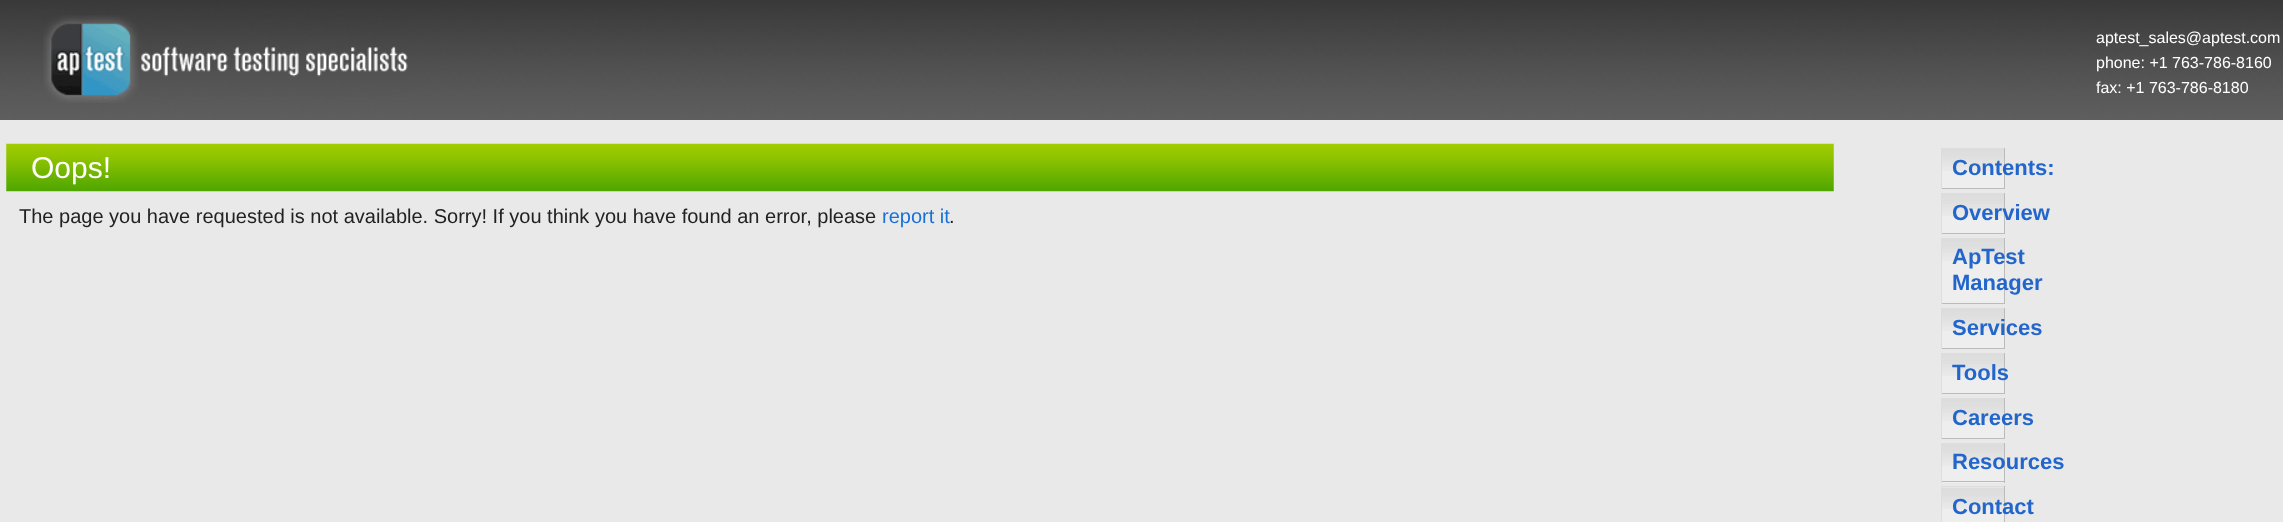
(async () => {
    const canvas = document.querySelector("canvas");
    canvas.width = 2283;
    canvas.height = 522;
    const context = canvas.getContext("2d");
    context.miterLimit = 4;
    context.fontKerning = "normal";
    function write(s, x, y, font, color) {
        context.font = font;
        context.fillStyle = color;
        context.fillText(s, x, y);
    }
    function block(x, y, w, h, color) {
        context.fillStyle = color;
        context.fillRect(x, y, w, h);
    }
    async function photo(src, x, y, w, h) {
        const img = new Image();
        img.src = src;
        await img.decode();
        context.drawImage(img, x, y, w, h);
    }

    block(0, 0, 2283, 522, "rgb(233, 233, 233)");
    await photo("media/1.png", 0, 0, 2283, 120);
    await photo("media/2.png", 43, 15, 365, 88);
    write("aptest_sales@aptest.com", 2096, 43, "16px Liberation Sans", "rgb(255, 255, 255)");
    write("phone: +1 763-786-8160", 2096, 68, "16px Liberation Sans", "rgb(255, 255, 255)");
    write("fax: +1 763-786-8180", 2096, 93, "16px Liberation Sans", "rgb(255, 255, 255)");
    await photo("media/3.png", 6, 143, 1828, 49);
    write("Oops!", 31, 178, "30px Liberation Sans", "rgb(255, 255, 255)");
    write("The page you have requested is not available. Sorry! If you think you have found an error, please", 19, 223, "20px Liberation Sans", "rgb(34, 34, 34)");
    write("report it", 882, 223, "20px Liberation Sans", "rgb(23, 114, 216)");
    write(".", 949, 223, "20px Liberation Sans", "rgb(34, 34, 34)");
    block(1942, 171, 62, 17, "rgb(238, 238, 238)");
    await photo("media/4.png", 1942, 149, 62, 22);
    block(1941, 148, 64, 1, "rgb(221, 221, 221)");
    block(2004, 148, 1, 41, "rgb(187, 187, 187)");
    block(1941, 188, 64, 1, "rgb(187, 187, 187)");
    block(1941, 148, 1, 41, "rgb(221, 221, 221)");
    write("Contents:", 1952, 175, "bold 22px Liberation Sans", "rgb(34, 102, 204)");
    block(1942, 216, 62, 17, "rgb(238, 238, 238)");
    await photo("media/4.png", 1942, 194, 62, 22);
    block(1941, 193, 64, 1, "rgb(221, 221, 221)");
    block(2004, 193, 1, 41, "rgb(187, 187, 187)");
    block(1941, 233, 64, 1, "rgb(187, 187, 187)");
    block(1941, 193, 1, 41, "rgb(221, 221, 221)");
    write("Overview", 1952, 220, "bold 22px Liberation Sans", "rgb(34, 102, 204)");
    block(1942, 261, 62, 42, "rgb(238, 238, 238)");
    await photo("media/4.png", 1942, 239, 62, 22);
    block(1941, 238, 64, 1, "rgb(221, 221, 221)");
    block(2004, 238, 1, 66, "rgb(187, 187, 187)");
    block(1941, 303, 64, 1, "rgb(187, 187, 187)");
    block(1941, 238, 1, 66, "rgb(221, 221, 221)");
    write("ApTest", 1952, 264, "bold 22px Liberation Sans", "rgb(34, 102, 204)");
    write("Manager", 1952, 290, "bold 22px Liberation Sans", "rgb(34, 102, 204)");
    block(1942, 331, 62, 17, "rgb(238, 238, 238)");
    await photo("media/4.png", 1942, 309, 62, 22);
    block(1941, 308, 64, 1, "rgb(221, 221, 221)");
    block(2004, 308, 1, 41, "rgb(187, 187, 187)");
    block(1941, 348, 64, 1, "rgb(187, 187, 187)");
    block(1941, 308, 1, 41, "rgb(221, 221, 221)");
    write("Services", 1952, 335, "bold 22px Liberation Sans", "rgb(34, 102, 204)");
    block(1942, 376, 62, 17, "rgb(238, 238, 238)");
    await photo("media/4.png", 1942, 354, 62, 22);
    block(1941, 353, 64, 1, "rgb(221, 221, 221)");
    block(2004, 353, 1, 41, "rgb(187, 187, 187)");
    block(1941, 393, 64, 1, "rgb(187, 187, 187)");
    block(1941, 353, 1, 41, "rgb(221, 221, 221)");
    write("Tools", 1952, 380, "bold 22px Liberation Sans", "rgb(34, 102, 204)");
    block(1942, 421, 62, 17, "rgb(238, 238, 238)");
    await photo("media/4.png", 1942, 399, 62, 22);
    block(1941, 398, 64, 1, "rgb(221, 221, 221)");
    block(2004, 398, 1, 41, "rgb(187, 187, 187)");
    block(1941, 438, 64, 1, "rgb(187, 187, 187)");
    block(1941, 398, 1, 41, "rgb(221, 221, 221)");
    write("Careers", 1952, 425, "bold 22px Liberation Sans", "rgb(34, 102, 204)");
    block(1942, 466, 62, 17, "rgb(238, 238, 238)");
    await photo("media/4.png", 1942, 444, 62, 22);
    block(1941, 443, 64, 1, "rgb(221, 221, 221)");
    block(2004, 443, 1, 40, "rgb(187, 187, 187)");
    block(1941, 481, 64, 1, "rgb(187, 187, 187)");
    block(1941, 443, 1, 40, "rgb(221, 221, 221)");
    write("Resources", 1952, 469, "bold 22px Liberation Sans", "rgb(34, 102, 204)");
    block(1942, 487, 62, 35, "rgb(238, 238, 238)");
    await photo("media/5.png", 1942, 487, 62, 22);
    block(1941, 486, 64, 1, "rgb(221, 221, 221)");
    block(2004, 486, 1, 36, "rgb(187, 187, 187)");
    block(1941, 486, 1, 36, "rgb(221, 221, 221)");
    write("Contact", 1952, 514, "bold 22px Liberation Sans", "rgb(34, 102, 204)");
})();
